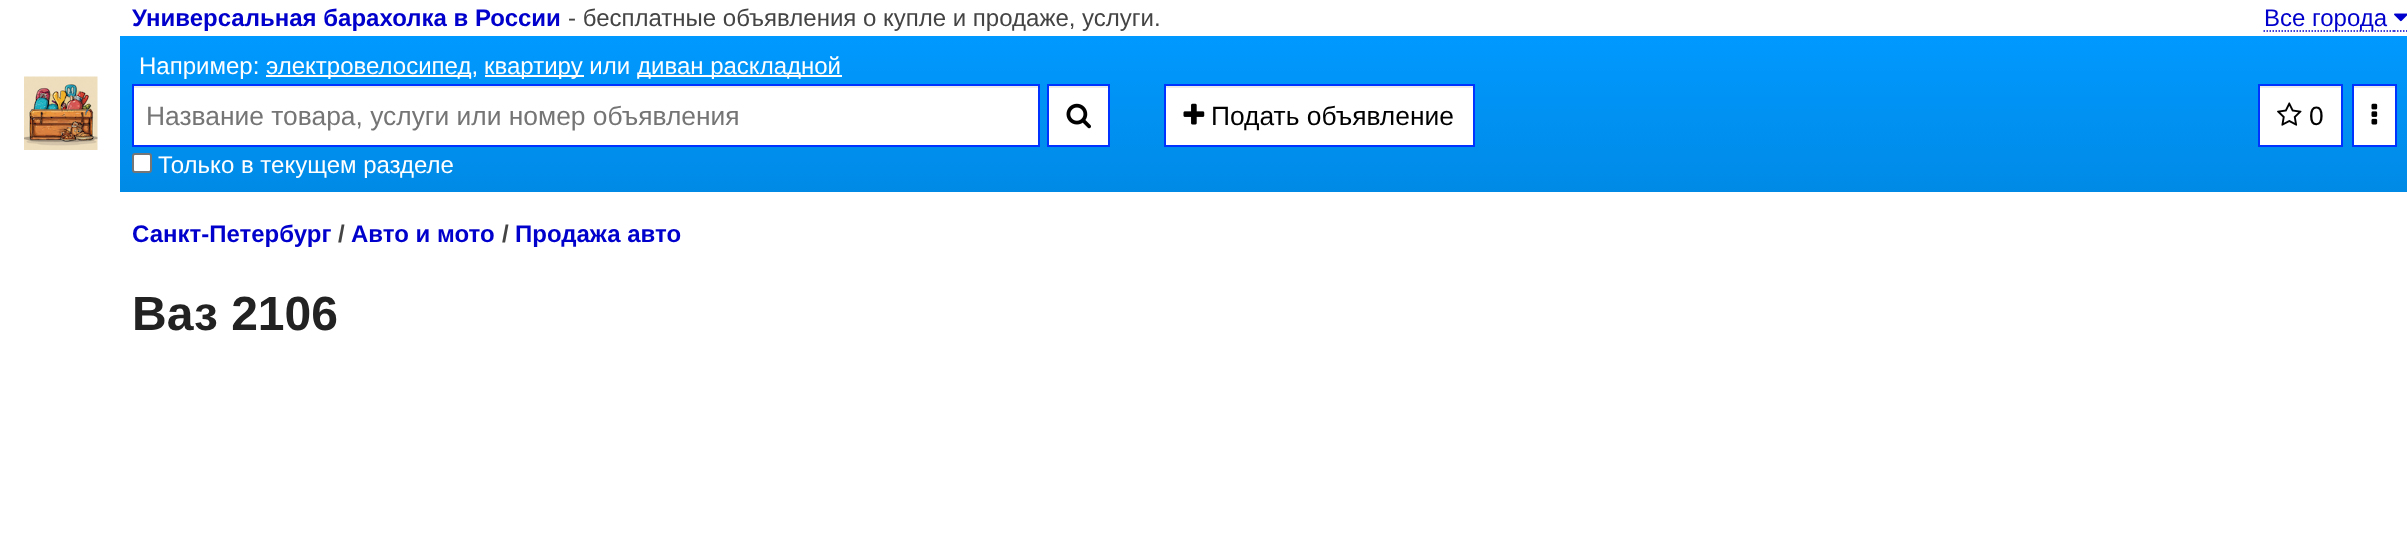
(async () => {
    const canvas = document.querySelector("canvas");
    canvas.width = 2407;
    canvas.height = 553;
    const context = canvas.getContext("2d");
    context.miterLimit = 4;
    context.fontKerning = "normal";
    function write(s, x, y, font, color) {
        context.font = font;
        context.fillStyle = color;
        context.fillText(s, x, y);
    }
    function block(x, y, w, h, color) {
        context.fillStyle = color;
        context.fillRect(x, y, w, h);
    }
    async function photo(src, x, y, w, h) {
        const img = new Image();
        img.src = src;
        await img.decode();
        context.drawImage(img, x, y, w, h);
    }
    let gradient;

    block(0, 0, 2407, 553, "rgb(255, 255, 255)");
    write("Универсальная барахолка в России", 132, 26, "bold 24px Liberation Sans", "rgb(0, 0, 204)");
    write("- бесплатные объявления о купле и продаже, услуги.", 568, 26, "24px Liberation Sans", "rgb(68, 68, 68)");
    context.beginPath();
    context.moveTo(2263.5, 31);
    context.lineTo(2394, 31);
    context.strokeStyle = "rgb(0, 0, 204)";
    context.lineWidth = 1.5;
    context.setLineDash([1.5, 1.5]);
    context.stroke();
    context.beginPath();
    context.moveTo(2394, 31);
    context.lineTo(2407.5, 31);
    context.stroke();
    write("Все города", 2264, 26, "24px Liberation Sans", "rgb(0, 0, 204)");
    await photo("media/1.png", 2394, 13, 13, 9);
    gradient = context.createLinearGradient(0, 36, 0, 192);
    gradient.addColorStop(0, "rgb(0, 153, 255)");
    gradient.addColorStop(1, "rgb(0, 138, 230)");
    context.fillStyle = gradient;
    context.fillRect(120, 36, 2287, 156);
    await photo("media/2.png", 24, 76, 74, 74);
    write("Например:", 139, 74, "24px Liberation Sans", "rgb(255, 255, 255)");
    block(266, 75, 205, 2, "rgb(255, 255, 255)");
    write("электровелосипед,", 266, 74, "24px Liberation Sans", "rgb(255, 255, 255)");
    block(485, 75, 99, 2, "rgb(255, 255, 255)");
    write("квартиру или", 484, 74, "24px Liberation Sans", "rgb(255, 255, 255)");
    block(638, 75, 204, 2, "rgb(255, 255, 255)");
    write("диван раскладной", 637, 74, "24px Liberation Sans", "rgb(255, 255, 255)");
    block(134, 88, 904, 57, "rgb(255, 255, 255)");
    block(134, 86, 904, 2, "rgb(236, 236, 236)");
    context.strokeStyle = "rgb(0, 51, 255)";
    context.lineWidth = 2;
    context.setLineDash([]);
    context.strokeRect(133, 85, 906, 61);
    write("Название товара, услуги или номер объявления", 146, 125, "26.4px Liberation Sans", "rgb(117, 117, 117)");
    block(1049, 88, 59, 57, "rgb(255, 255, 255)");
    block(1049, 86, 60, 2, "rgb(236, 236, 236)");
    context.strokeRect(1048, 85, 61, 61);
    await photo("media/3.png", 1066, 103, 25, 26);
    context.fillStyle = "rgb(255, 255, 255)";
    context.beginPath();
    context.roundRect(133, 154, 18, 18, 2);
    context.fill();
    context.strokeStyle = "rgb(118, 118, 118)";
    context.stroke();
    write("Только в текущем разделе", 158, 173, "24px Liberation Sans", "rgb(255, 255, 255)");
    block(1166, 88, 307, 57, "rgb(255, 255, 255)");
    block(1166, 86, 307, 2, "rgb(236, 236, 236)");
    context.strokeStyle = "rgb(0, 51, 255)";
    context.strokeRect(1165, 85, 309, 61);
    await photo("media/4.png", 1183, 103, 22, 22);
    write("Подать объявление", 1211, 125, "26.4px Liberation Sans", "rgb(0, 0, 0)");
    block(2260, 88, 81, 57, "rgb(255, 255, 255)");
    block(2259, 86, 83, 2, "rgb(236, 236, 236)");
    context.strokeRect(2259, 85, 83, 61);
    await photo("media/5.png", 2277, 102, 25, 24);
    write("0", 2309, 125, "26.4px Liberation Sans", "rgb(0, 0, 0)");
    block(2354, 88, 41, 57, "rgb(255, 255, 255)");
    block(2354, 86, 42, 2, "rgb(236, 236, 236)");
    context.strokeRect(2353, 85, 43, 61);
    await photo("media/6.png", 2371, 103, 7, 22);
    write("Санкт-Петербург", 132, 242, "bold 24px Liberation Sans", "rgb(0, 0, 204)");
    write("/", 338, 242, "bold 24px Liberation Sans", "rgb(68, 68, 68)");
    write("Авто и мото", 351, 242, "bold 24px Liberation Sans", "rgb(0, 0, 204)");
    write("/", 502, 242, "bold 24px Liberation Sans", "rgb(68, 68, 68)");
    write("Продажа авто", 515, 242, "bold 24px Liberation Sans", "rgb(0, 0, 204)");
    write("Ваз 2106", 132, 330, "bold 48px Liberation Sans", "rgb(34, 34, 34)");
})();
